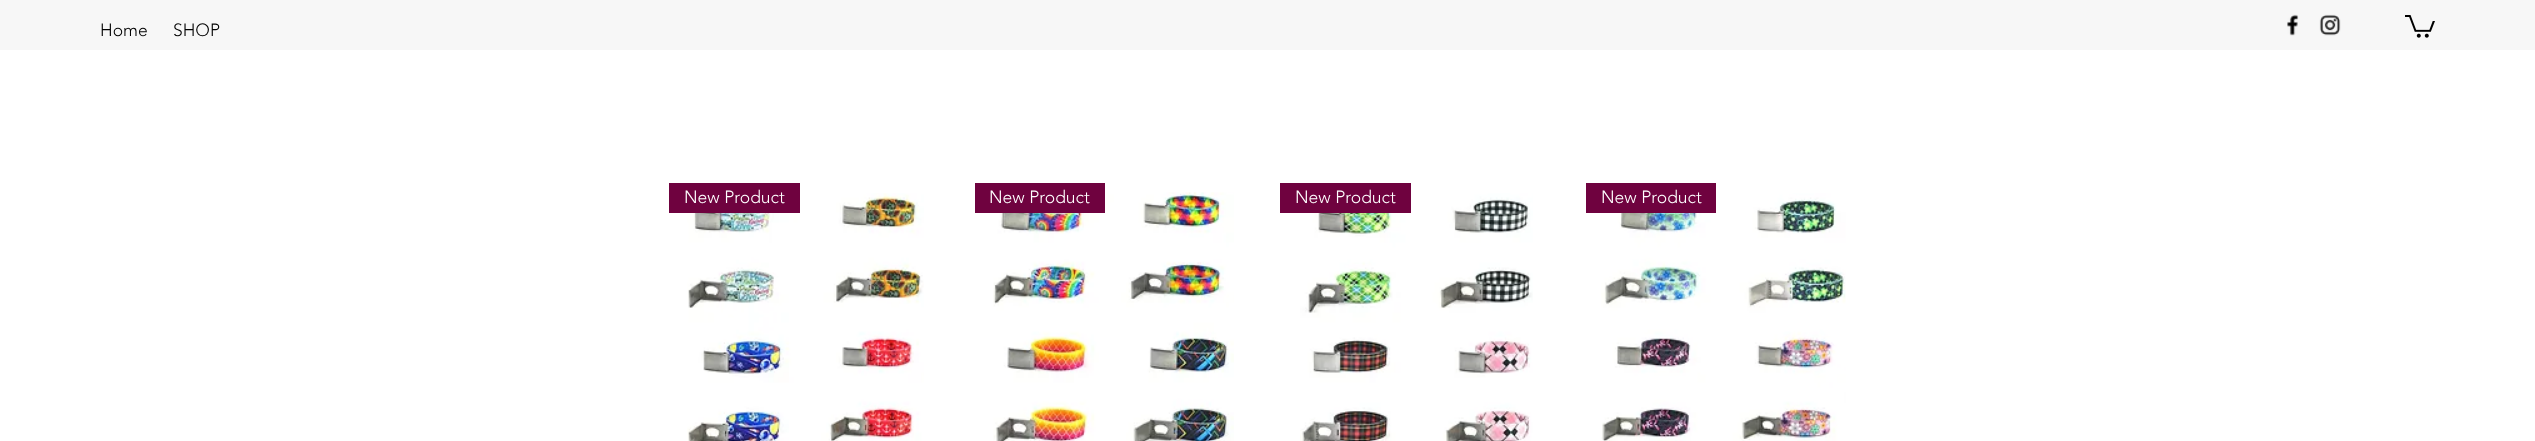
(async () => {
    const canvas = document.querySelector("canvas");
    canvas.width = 2535;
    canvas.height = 441;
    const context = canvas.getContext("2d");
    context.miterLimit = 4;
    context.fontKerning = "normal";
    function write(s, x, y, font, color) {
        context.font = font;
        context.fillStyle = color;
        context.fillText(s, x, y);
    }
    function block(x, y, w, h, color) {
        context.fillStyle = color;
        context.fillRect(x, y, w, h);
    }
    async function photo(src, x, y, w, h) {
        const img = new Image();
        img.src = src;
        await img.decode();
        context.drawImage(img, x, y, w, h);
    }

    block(0, 0, 2535, 441, "rgb(255, 255, 255)");
    block(0, 0, 2535, 50, "rgb(247, 247, 247)");
    write("Home", 100, 36, "300 17.5px 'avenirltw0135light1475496'", "rgb(0, 0, 0)");
    write("SHOP", 173, 36, "300 17.5px 'avenirltw0135light1475496'", "rgb(0, 0, 0)");
    await photo("media/1.png", 2287, 14, 12, 22);
    await photo("media/2.png", 2319, 14, 22, 22);
    await photo("media/3.png", 2405, 15, 30, 23);
    await photo("media/4.png", 687, 193, 237, 248);
    block(669, 183, 131, 30, "rgb(111, 2, 63)");
    write("New Product", 684, 203, "300 17.5px 'avenirltw0135light1475496'", "rgb(255, 255, 255)");
    await photo("media/5.png", 993, 192, 241, 249);
    block(975, 183, 130, 30, "rgb(111, 2, 63)");
    write("New Product", 989, 203, "300 17.5px 'avenirltw0135light1475496'", "rgb(255, 255, 255)");
    await photo("media/6.png", 1300, 193, 233, 248);
    block(1280, 183, 131, 30, "rgb(111, 2, 63)");
    write("New Product", 1295, 203, "300 17.5px 'avenirltw0135light1475496'", "rgb(255, 255, 255)");
    await photo("media/7.png", 1601, 193, 245, 248);
    block(1586, 183, 130, 30, "rgb(111, 2, 63)");
    write("New Product", 1601, 203, "300 17.5px 'avenirltw0135light1475496'", "rgb(255, 255, 255)");
})();
